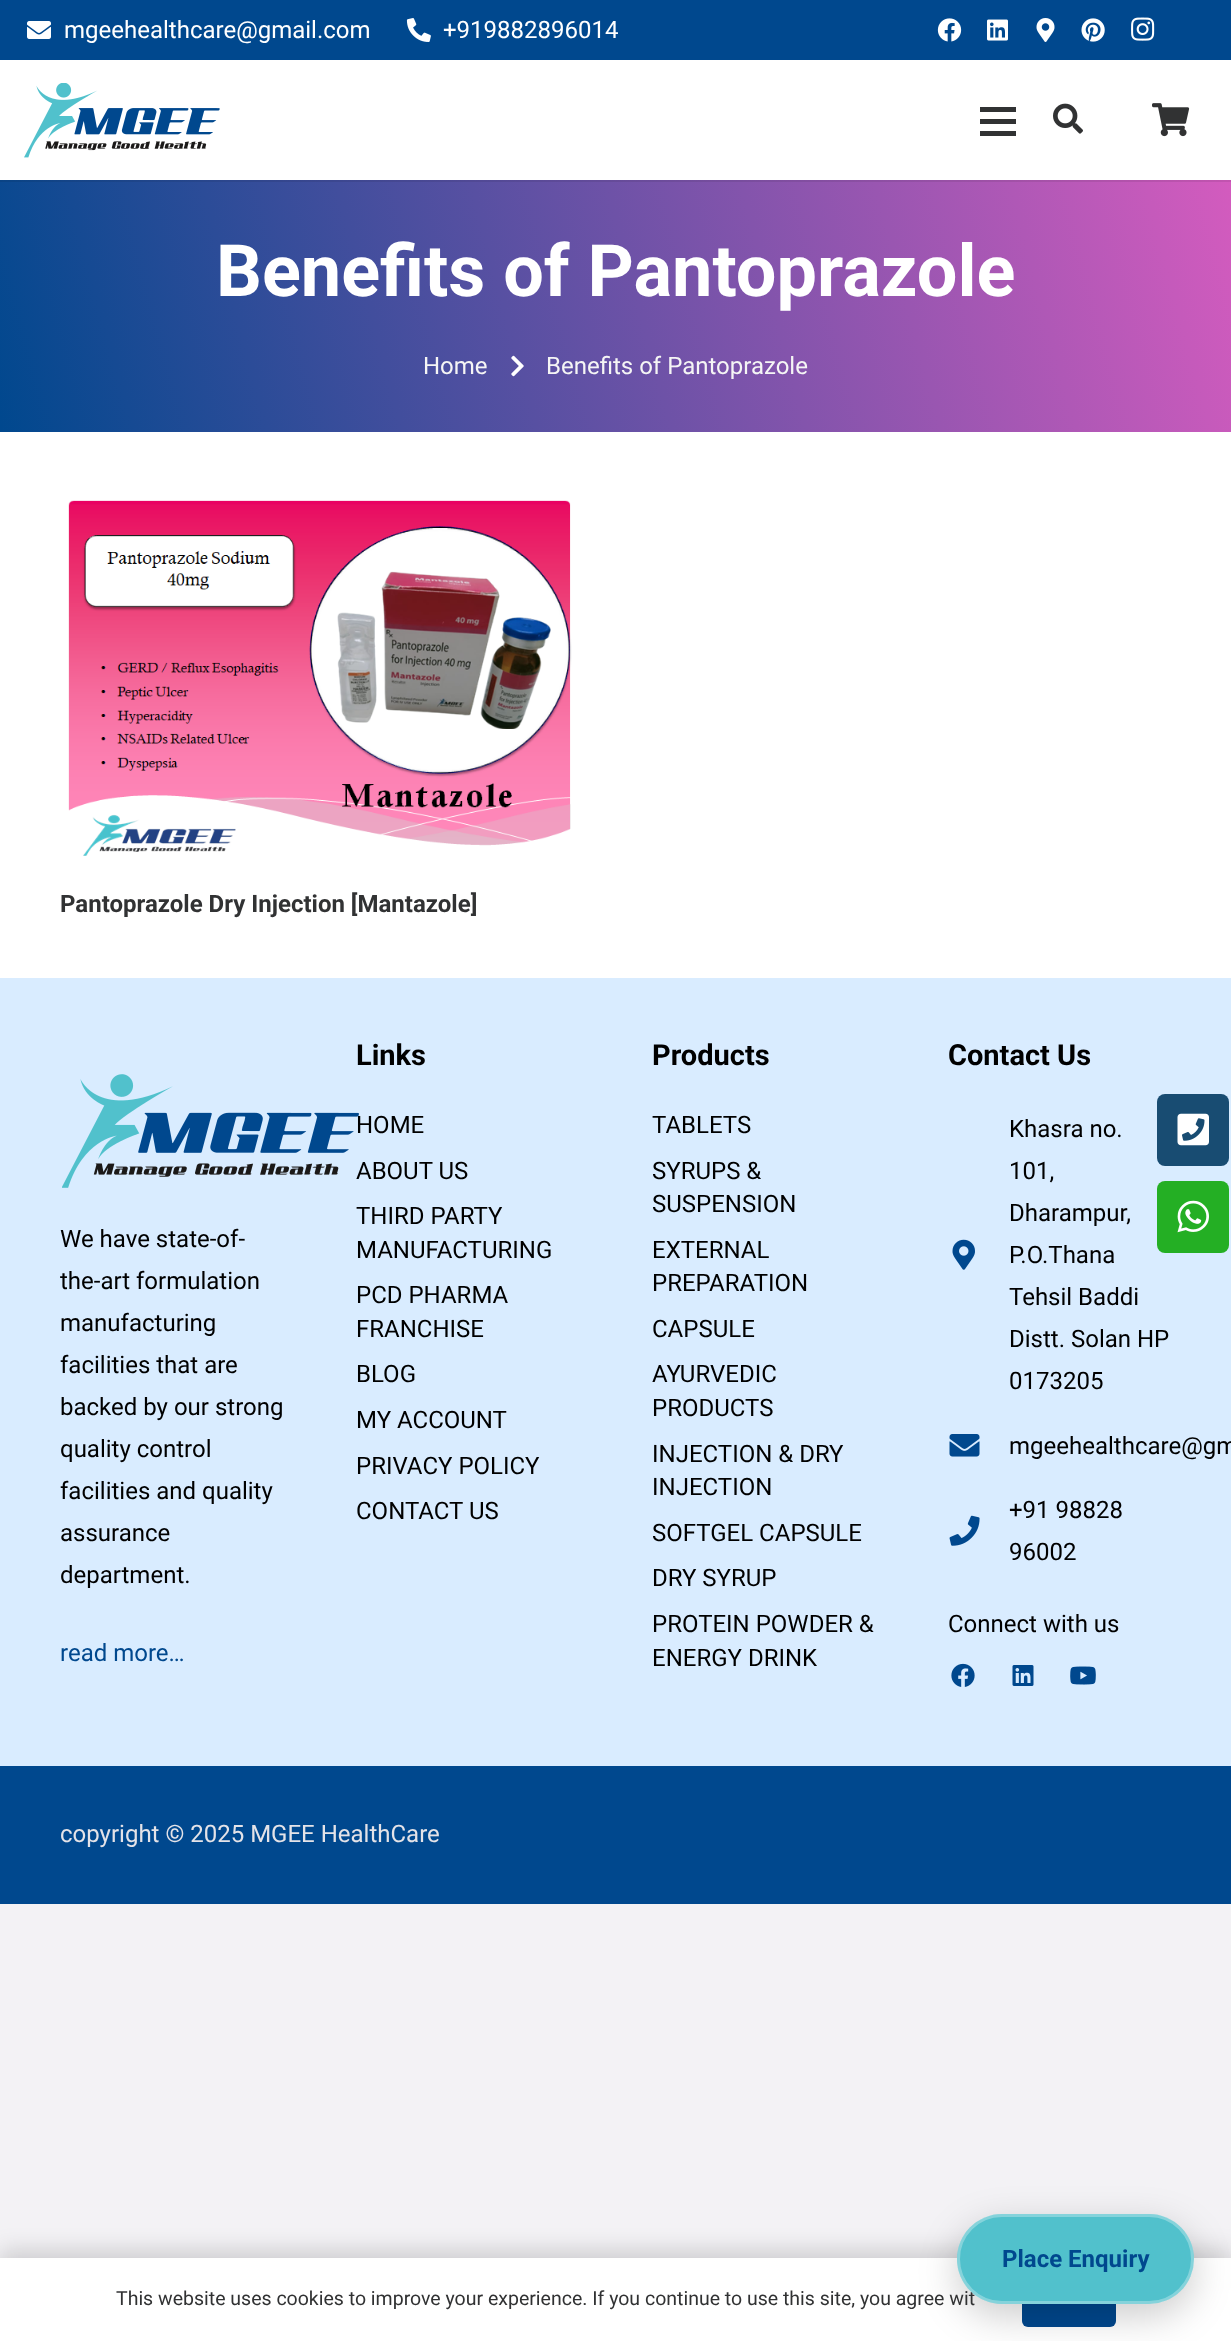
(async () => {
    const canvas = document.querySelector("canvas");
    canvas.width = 1231;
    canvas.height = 2341;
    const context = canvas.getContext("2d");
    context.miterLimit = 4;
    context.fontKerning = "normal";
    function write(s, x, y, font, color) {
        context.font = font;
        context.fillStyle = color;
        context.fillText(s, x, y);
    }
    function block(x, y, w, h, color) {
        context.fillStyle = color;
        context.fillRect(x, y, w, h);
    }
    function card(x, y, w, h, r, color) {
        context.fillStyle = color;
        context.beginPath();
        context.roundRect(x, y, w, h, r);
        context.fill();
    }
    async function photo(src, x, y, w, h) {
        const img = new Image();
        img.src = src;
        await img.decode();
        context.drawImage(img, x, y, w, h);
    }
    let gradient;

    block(0, 0, 1231, 2341, "rgb(243, 242, 245)");
    block(0, 432, 1231, 546, "rgb(255, 255, 255)");
    block(0, 0, 1231, 60, "rgb(0, 72, 142)");
    await photo("media/1.png", 27, 21, 24, 18);
    write("mgeehealthcare@gmail.com", 64, 38, "24px Roboto", "rgb(255, 255, 255)");
    await photo("media/2.png", 406, 18, 25, 24);
    write("+919882896014", 443, 38, "24px Roboto", "rgb(255, 255, 255)");
    await photo("media/3.png", 937, 18, 25, 24);
    await photo("media/4.png", 987, 19, 21, 22);
    await photo("media/5.png", 1036, 18, 19, 24);
    await photo("media/6.png", 1081, 18, 24, 24);
    await photo("media/7.png", 1131, 17, 24, 24);
    gradient = context.createLinearGradient(-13, 384, 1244, 48);
    gradient.addColorStop(0, "rgb(0, 72, 142)");
    gradient.addColorStop(1, "rgb(219, 92, 192)");
    context.fillStyle = gradient;
    context.fillRect(0, 180, 1231, 252);
    context.fillStyle = "rgba(0, 0, 0, 0.08)";
    context.beginPath();
    context.moveTo(0, 180);
    context.lineTo(0, 182);
    context.lineTo(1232, 182);
    context.lineTo(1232, 62);
    context.lineTo(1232, 180);
    context.closePath();
    context.fill();
    block(0, 60, 1231, 120, "rgb(255, 255, 255)");
    await photo("media/8.png", 24, 83, 196, 75);
    block(980, 119, 36, 5, "rgb(49, 50, 51)");
    block(980, 107, 36, 5, "rgb(49, 50, 51)");
    block(980, 131, 36, 5, "rgb(49, 50, 51)");
    await photo("media/9.png", 1053, 103, 30, 31);
    await photo("media/10.png", 1152, 103, 38, 34);
    write("Benefits of Pantoprazole", 216, 296, "bold 72px Roboto", "rgb(255, 255, 255)");
    write("Home", 423, 374, "24px Roboto", "rgb(245, 245, 245)");
    await photo("media/11.png", 511, 355, 13, 22);
    write("Benefits of Pantoprazole", 546, 374, "24px Roboto", "rgb(245, 245, 245)");
    await photo("media/12.png", 68, 500, 504, 356);
    write("Pantoprazole Dry Injection [Mantazole]", 60, 912, "bold 24px Roboto", "rgb(49, 50, 51)");
    block(0, 978, 1231, 788, "rgb(217, 236, 255)");
    await photo("media/13.png", 62, 1074, 297, 114);
    write("We have state-of-", 60, 1247, "24px Roboto", "rgb(0, 0, 0)");
    write("the-art formulation", 60, 1289, "24px Roboto", "rgb(0, 0, 0)");
    write("manufacturing", 60, 1331, "24px Roboto", "rgb(0, 0, 0)");
    write("facilities that are", 60, 1373, "24px Roboto", "rgb(0, 0, 0)");
    write("backed by our strong", 60, 1415, "24px Roboto", "rgb(0, 0, 0)");
    write("quality control", 60, 1457, "24px Roboto", "rgb(0, 0, 0)");
    write("facilities and quality", 60, 1499, "24px Roboto", "rgb(0, 0, 0)");
    write("assurance", 60, 1541, "24px Roboto", "rgb(0, 0, 0)");
    write("department.", 60, 1583, "24px Roboto", "rgb(0, 0, 0)");
    write("read more…", 60, 1661, "24px Roboto", "rgb(0, 72, 142)");
    write("Links", 356, 1065, "bold 29px Roboto", "rgb(0, 0, 0)");
    write("HOME", 356, 1133, "24px Roboto", "rgb(0, 0, 0)");
    write("ABOUT US", 356, 1179, "24px Roboto", "rgb(0, 0, 0)");
    write("THIRD PARTY", 356, 1224, "24px Roboto", "rgb(0, 0, 0)");
    write("MANUFACTURING", 356, 1258, "24px Roboto", "rgb(0, 0, 0)");
    write("PCD PHARMA", 356, 1303, "24px Roboto", "rgb(0, 0, 0)");
    write("FRANCHISE", 356, 1337, "24px Roboto", "rgb(0, 0, 0)");
    write("BLOG", 356, 1382, "24px Roboto", "rgb(0, 0, 0)");
    write("MY ACCOUNT", 356, 1428, "24px Roboto", "rgb(0, 0, 0)");
    write("PRIVACY POLICY", 356, 1474, "24px Roboto", "rgb(0, 0, 0)");
    write("CONTACT US", 356, 1519, "24px Roboto", "rgb(0, 0, 0)");
    write("Products", 652, 1065, "bold 29px Roboto", "rgb(0, 0, 0)");
    write("TABLETS", 652, 1133, "24px Roboto", "rgb(0, 0, 0)");
    write("SYRUPS &", 652, 1179, "24px Roboto", "rgb(0, 0, 0)");
    write("SUSPENSION", 652, 1212, "24px Roboto", "rgb(0, 0, 0)");
    write("EXTERNAL", 652, 1258, "24px Roboto", "rgb(0, 0, 0)");
    write("PREPARATION", 652, 1291, "24px Roboto", "rgb(0, 0, 0)");
    write("CAPSULE", 652, 1337, "24px Roboto", "rgb(0, 0, 0)");
    write("AYURVEDIC", 652, 1382, "24px Roboto", "rgb(0, 0, 0)");
    write("PRODUCTS", 652, 1416, "24px Roboto", "rgb(0, 0, 0)");
    write("INJECTION & DRY", 652, 1462, "24px Roboto", "rgb(0, 0, 0)");
    write("INJECTION", 652, 1495, "24px Roboto", "rgb(0, 0, 0)");
    write("SOFTGEL CAPSULE", 652, 1541, "24px Roboto", "rgb(0, 0, 0)");
    write("DRY SYRUP", 652, 1586, "24px Roboto", "rgb(0, 0, 0)");
    write("PROTEIN POWDER &", 652, 1632, "24px Roboto", "rgb(0, 0, 0)");
    write("ENERGY DRINK", 652, 1666, "24px Roboto", "rgb(0, 0, 0)");
    write("Contact Us", 948, 1065, "bold 29px Roboto", "rgb(0, 0, 0)");
    await photo("media/14.png", 952, 1239, 23, 31);
    write("Khasra no.", 1009, 1137, "24px Roboto", "rgb(0, 0, 0)");
    write("101,", 1009, 1179, "24px Roboto", "rgb(0, 0, 0)");
    write("Dharampur,", 1009, 1221, "24px Roboto", "rgb(0, 0, 0)");
    write("P.O.Thana", 1009, 1263, "24px Roboto", "rgb(0, 0, 0)");
    write("Tehsil Baddi", 1009, 1305, "24px Roboto", "rgb(0, 0, 0)");
    write("Distt. Solan HP", 1009, 1347, "24px Roboto", "rgb(0, 0, 0)");
    write("0173205", 1009, 1389, "24px Roboto", "rgb(0, 0, 0)");
    await photo("media/15.png", 949, 1434, 31, 23);
    write("mgeehealthcare@gm", 1009, 1454, "24px Roboto", "rgb(0, 0, 0)");
    await photo("media/16.png", 949, 1515, 31, 31);
    write("+91 98828", 1009, 1518, "24px Roboto", "rgb(0, 0, 0)");
    write("96002", 1009, 1560, "24px Roboto", "rgb(0, 0, 0)");
    write("Connect with us", 948, 1632, "24px Roboto", "rgb(0, 0, 0)");
    await photo("media/17.png", 951, 1663, 24, 24);
    await photo("media/18.png", 1012, 1665, 22, 21);
    await photo("media/19.png", 1070, 1666, 26, 19);
    context.fillStyle = "rgba(0, 0, 0, 0.15)";
    context.filter = "blur(11px)";
    context.beginPath();
    context.rect(0, 2250, 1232, 84);
    context.fill();
    context.filter = "none";
    block(0, 2258, 1231, 83, "rgb(255, 255, 255)");
    card(1022, 2273, 94, 54, 6, "rgb(0, 72, 142)");
    context.fillStyle = "rgba(0, 0, 0, 0.2)";
    context.filter = "blur(19px)";
    context.beginPath();
    context.roundRect(957, 2226, 237, 90, 45);
    context.fill();
    context.filter = "none";
    write("This website uses cookies to improve your experience. If you continue to use this site, you agree wit", 116, 2305, "19.5px Roboto", "rgb(49, 50, 51)");
    card(957, 2214, 237, 90, 45, "rgb(81, 193, 204)");
    context.beginPath();
    context.roundRect(958.5, 2215.5, 234, 87, 43.5);
    context.strokeStyle = "rgba(255, 255, 255, 0.3)";
    context.lineWidth = 3;
    context.stroke();
    write("Place Enquiry", 1002, 2267, "bold 24px Roboto", "rgb(0, 72, 142)");
    block(0, 1766, 1231, 138, "rgb(0, 72, 142)");
    write("copyright © 2025 MGEE HealthCare", 60, 1842, "24px Roboto", "rgb(228, 227, 232)");
    card(1157, 1094, 72, 72, 8, "rgb(24, 76, 114)");
    await photo("media/20.png", 1177, 1113, 32, 33);
    card(1157, 1181, 72, 72, 8, "rgb(36, 175, 36)");
    await photo("media/21.png", 1177, 1200, 32, 33);
})();
